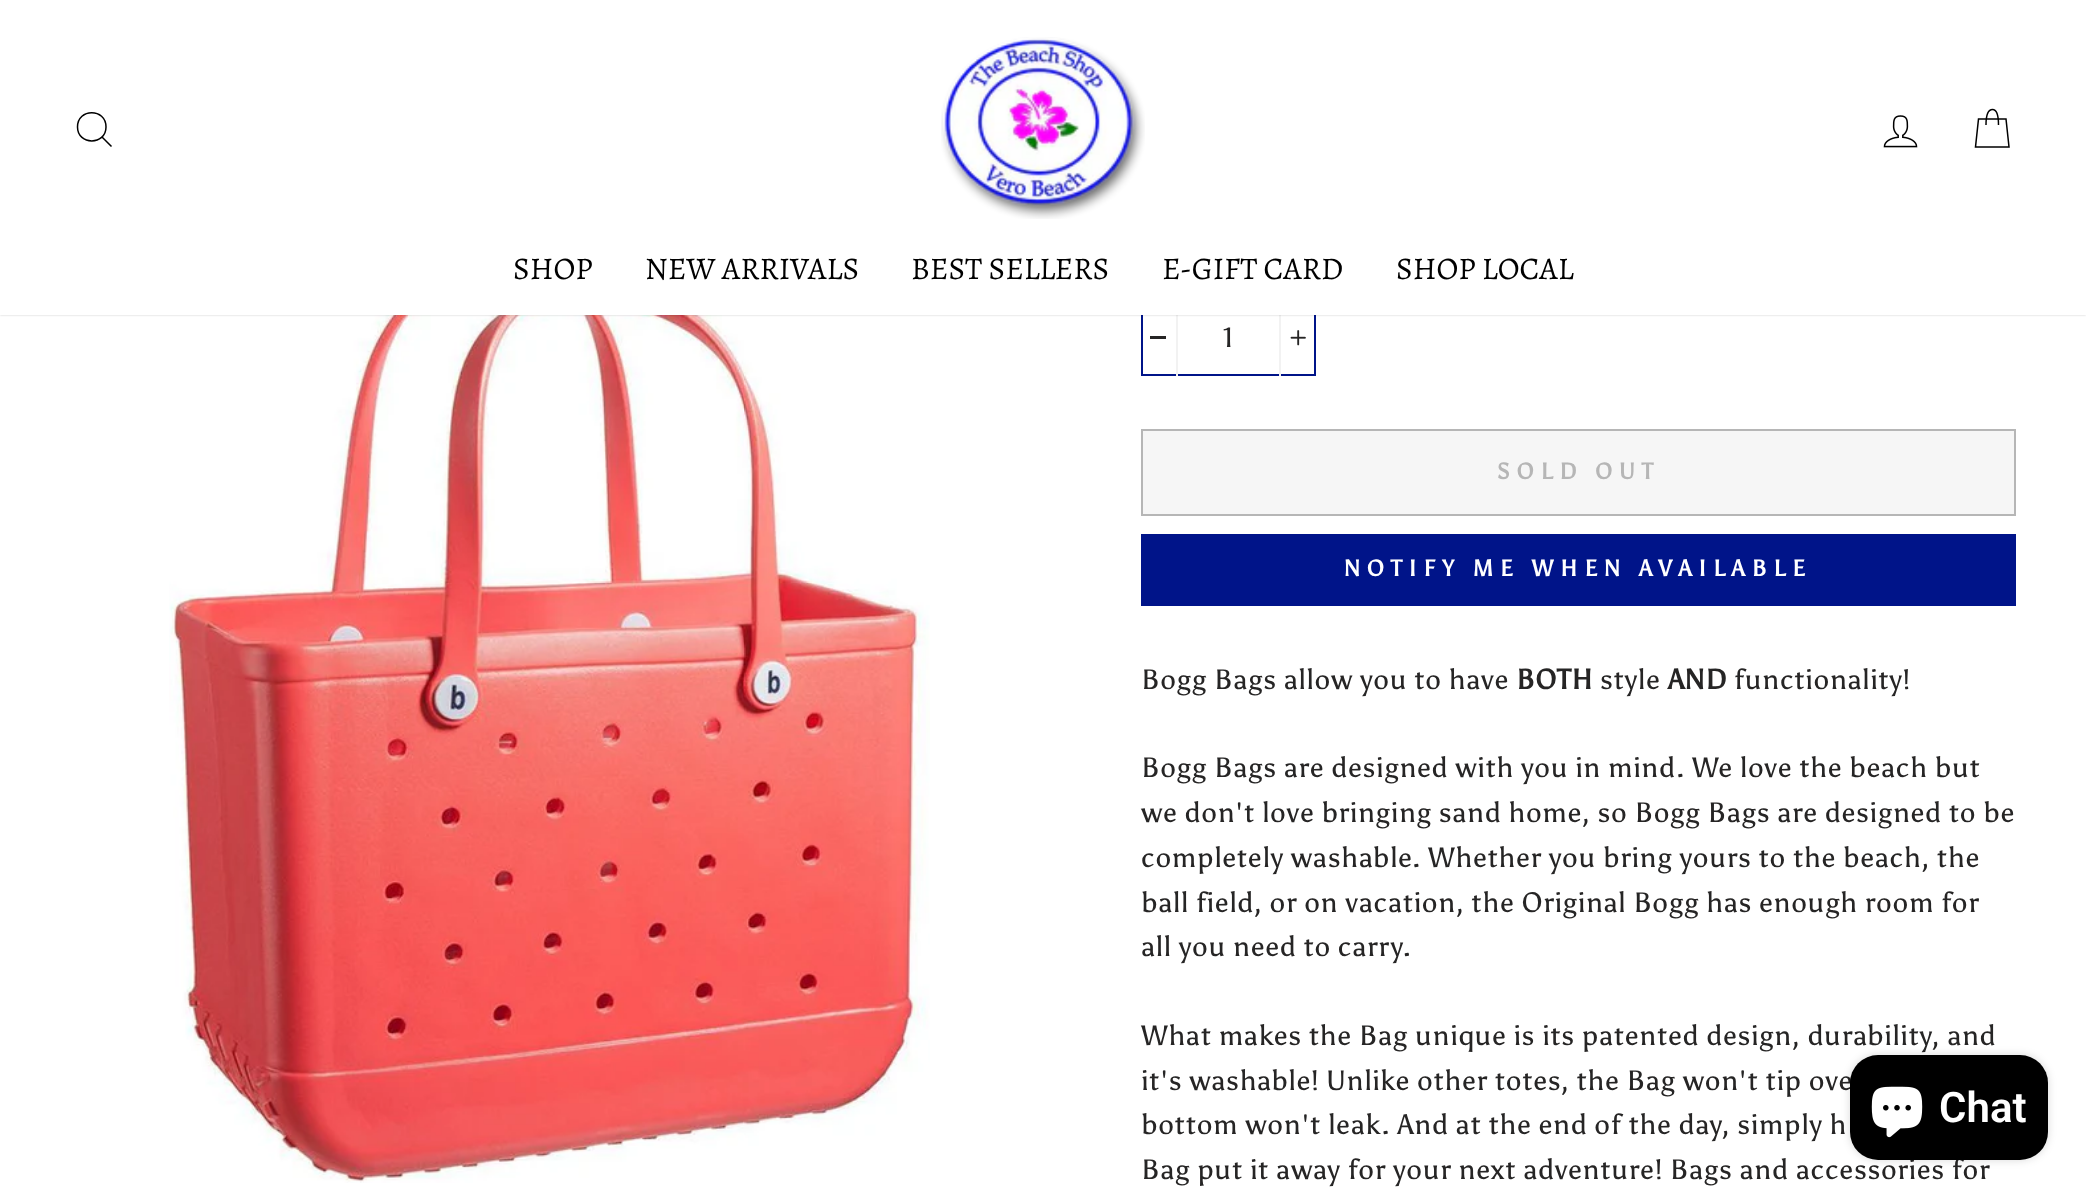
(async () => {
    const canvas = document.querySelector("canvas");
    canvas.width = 2086;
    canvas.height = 1197;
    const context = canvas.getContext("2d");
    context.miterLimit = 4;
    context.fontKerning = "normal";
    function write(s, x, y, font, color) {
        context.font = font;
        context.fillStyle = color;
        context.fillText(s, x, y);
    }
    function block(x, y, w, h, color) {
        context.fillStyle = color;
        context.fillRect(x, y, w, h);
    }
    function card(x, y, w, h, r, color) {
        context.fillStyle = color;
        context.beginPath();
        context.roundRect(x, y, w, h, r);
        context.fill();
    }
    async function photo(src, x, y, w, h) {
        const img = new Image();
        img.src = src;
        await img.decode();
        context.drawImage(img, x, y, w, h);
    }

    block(0, 0, 2086, 1197, "rgb(255, 255, 255)");
    await photo("media/3.png", 169, 315, 761, 868);
    context.strokeStyle = "rgb(0, 20, 137)";
    context.lineWidth = 2;
    context.strokeRect(1142, 300, 173, 75);
    block(1176, 315, 2, 61, "rgb(242, 242, 242)");
    block(1279, 315, 2, 61, "rgb(242, 242, 242)");
    context.fillStyle = "rgba(0, 0, 0, 0.2)";
    context.filter = "blur(1px)";
    context.beginPath();
    context.rect(0, 0, 2086, 315);
    context.fill();
    context.filter = "none";
    block(0, 0, 2086, 315, "rgb(255, 255, 255)");
    context.beginPath();
    context.moveTo(106, 127);
    context.bezierCurveTo(106, 145.5, 77.5, 145.5, 77.5, 127);
    context.bezierCurveTo(77.5, 108, 106, 108, 106, 127);
    context.closePath();
    context.moveTo(111.5, 146.5);
    context.lineTo(102, 137);
    context.strokeStyle = "rgb(0, 0, 0)";
    context.lineWidth = 1.5;
    context.stroke();
    await photo("media/1.png", 941, 37, 204, 182);
    await photo("media/2.png", 1883, 115, 35, 33);
    context.beginPath();
    context.moveTo(1986, 125);
    context.bezierCurveTo(1986, 113, 1989, 109.5, 1992.5, 109.5);
    context.bezierCurveTo(1995.5, 109.5, 1998.5, 113, 1998.5, 125);
    context.moveTo(1978.5, 119);
    context.lineTo(2006, 119);
    context.lineTo(2009, 147);
    context.lineTo(1975.5, 147);
    context.closePath();
    context.stroke();
    write("SHOP", 513, 279, "31.5px Alegreya", "rgb(0, 0, 0)");
    write("NEW ARRIVALS", 645, 279, "31.5px Alegreya", "rgb(0, 0, 0)");
    write("BEST SELLERS", 911, 279, "31.5px Alegreya", "rgb(0, 0, 0)");
    write("E-GIFT CARD", 1162, 279, "31.5px Alegreya", "rgb(0, 0, 0)");
    write("SHOP LOCAL", 1396, 279, "31.5px Alegreya", "rgb(0, 0, 0)");
    block(1150, 336, 16, 3, "rgb(38, 37, 37)");
    context.letterSpacing = "0.7px";
    write("1", 1223, 347, "28px Asul", "rgb(38, 37, 37)");
    await photo("media/4.png", 1290, 330, 16, 16);
    context.fillStyle = "rgb(246, 246, 246)";
    context.beginPath();
    context.rect(1142, 430, 873, 85);
    context.fill();
    context.strokeStyle = "rgb(182, 182, 182)";
    context.lineWidth = 2;
    context.stroke();
    context.letterSpacing = "6.8px";
    write("SOLD OUT", 1497, 479, "bold 22.75px Asul", "rgb(182, 182, 182)");
    block(1141, 534, 875, 72, "rgb(0, 20, 137)");
    write("NOTIFY ME WHEN AVAILABLE", 1344, 576, "bold 22.75px Asul", "rgb(255, 255, 255)");
    context.letterSpacing = "0.7px";
    write("Bogg Bags allow you to have", 1141, 689, "28px Asul", "rgb(38, 37, 37)");
    write("BOTH", 1516, 689, "bold 28px Asul", "rgb(38, 37, 37)");
    write("style", 1600, 689, "28px Asul", "rgb(38, 37, 37)");
    write("AND", 1668, 689, "bold 28px Asul", "rgb(38, 37, 37)");
    write("functionality!", 1734, 689, "28px Asul", "rgb(38, 37, 37)");
    write("Bogg Bags are designed with you in mind. We love the beach but", 1141, 777, "28px Asul", "rgb(38, 37, 37)");
    write("we don't love bringing sand home, so Bogg Bags are designed to be", 1141, 822, "28px Asul", "rgb(38, 37, 37)");
    write("completely washable. Whether you bring yours to the beach, the", 1141, 867, "28px Asul", "rgb(38, 37, 37)");
    write("ball field, or on vacation, the Original Bogg has enough room for", 1141, 912, "28px Asul", "rgb(38, 37, 37)");
    write("all you need to carry.", 1141, 956, "28px Asul", "rgb(38, 37, 37)");
    write("What makes the Bag unique is its patented design, durability, and", 1141, 1045, "28px Asul", "rgb(38, 37, 37)");
    write("it's washable! Unlike other totes, the Bag won't tip ove", 1141, 1090, "28px Asul", "rgb(38, 37, 37)");
    write("bottom won't leak. And at the end of the day, simply h", 1141, 1134, "28px Asul", "rgb(38, 37, 37)");
    write("Bag put it away for your next adventure! Bags and accessories for", 1141, 1179, "28px Asul", "rgb(38, 37, 37)");
    context.fillStyle = "rgba(0, 0, 0, 0.15)";
    context.filter = "blur(4.5px)";
    context.beginPath();
    context.roundRect(1850, 1055, 198, 105, 28);
    context.fill();
    context.filter = "none";
    card(1850, 1055, 198, 105, 28, "rgb(0, 0, 0)");
    await photo("media/5.png", 1871, 1086, 52, 52);
    context.letterSpacing = "0px";
    write("Chat", 1939, 1122, "600 42px Roboto", "rgb(255, 255, 255)");
})();
